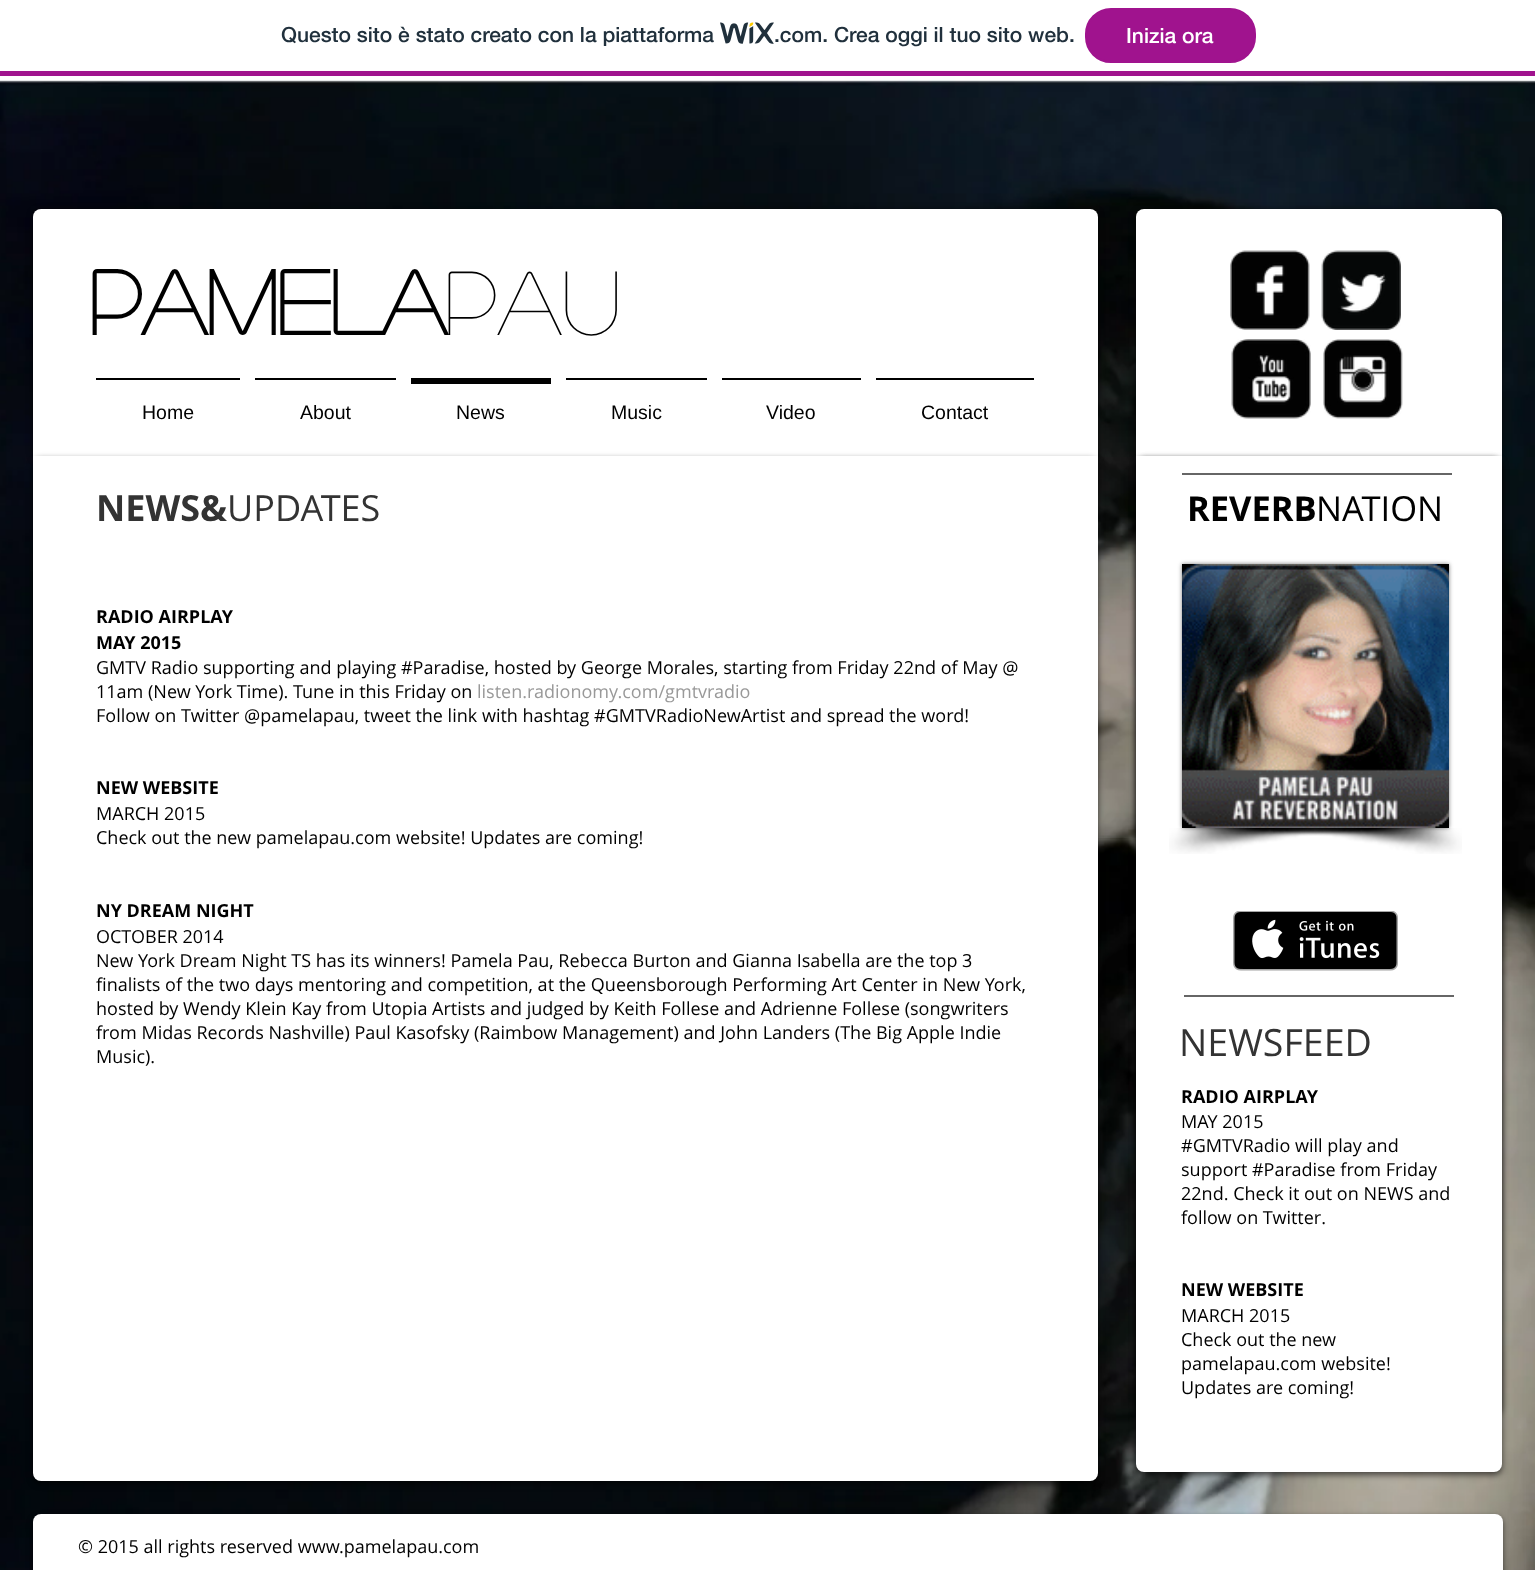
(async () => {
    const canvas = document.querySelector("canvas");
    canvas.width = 1535;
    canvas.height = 1570;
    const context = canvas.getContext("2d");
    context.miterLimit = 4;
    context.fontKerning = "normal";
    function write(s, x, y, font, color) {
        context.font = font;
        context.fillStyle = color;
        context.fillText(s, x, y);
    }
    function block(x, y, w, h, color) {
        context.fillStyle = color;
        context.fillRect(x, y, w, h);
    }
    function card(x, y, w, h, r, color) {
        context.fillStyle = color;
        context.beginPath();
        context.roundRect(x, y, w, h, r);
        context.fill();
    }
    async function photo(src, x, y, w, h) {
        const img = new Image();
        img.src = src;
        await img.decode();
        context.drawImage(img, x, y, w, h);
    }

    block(0, 0, 1535, 1570, "rgb(255, 255, 255)");
    block(0, 71, 1535, 5, "rgb(160, 19, 142)");
    write("Questo sito è stato creato con la piattaforma", 281, 42, "500 21px 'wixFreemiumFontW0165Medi'", "rgb(32, 48, 60)");
    await photo("media/1.png", 720, 22, 54, 22);
    write(".com. Crea oggi il tuo sito web.", 774, 42, "500 21px 'wixFreemiumFontW0165Medi'", "rgb(32, 48, 60)");
    context.fillStyle = "rgb(160, 19, 142)";
    context.beginPath();
    context.roundRect(1086, 9, 169, 53, 25);
    context.fill();
    context.strokeStyle = "rgb(160, 19, 142)";
    context.lineWidth = 2;
    context.stroke();
    write("Inizia ora", 1126, 43, "500 21px 'wixFreemiumFontW0165Medi'", "rgb(255, 255, 255)");
    await photo("media/2.png", 0, 76, 1535, 1494);
    context.fillStyle = "rgba(0, 0, 0, 0.6)";
    context.filter = "blur(3px)";
    context.beginPath();
    context.roundRect(33, 210, 1065, 251, 8);
    context.fill();
    context.filter = "none";
    context.fillStyle = "rgb(255, 255, 255)";
    context.beginPath();
    context.roundRect(33, 209, 1065, 250, [8, 8, 0, 0]);
    context.fill();
    write("PAMELA", 89, 335, "bold 90px 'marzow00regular'", "rgb(0, 0, 0)");
    write("PAU", 445, 335, "90px 'marzow00regular'", "rgb(0, 0, 0)");
    block(96, 378, 144, 2, "rgb(0, 0, 0)");
    write("Home", 142, 419, "19.5px Liberation Sans", "rgb(0, 0, 0)");
    block(255, 378, 141, 2, "rgb(0, 0, 0)");
    write("About", 300, 419, "19.5px Liberation Sans", "rgb(0, 0, 0)");
    block(411, 378, 140, 6, "rgb(0, 0, 0)");
    write("News", 456, 419, "19.5px Liberation Sans", "rgb(0, 0, 0)");
    block(566, 378, 141, 2, "rgb(0, 0, 0)");
    write("Music", 611, 419, "19.5px Liberation Sans", "rgb(0, 0, 0)");
    block(722, 378, 139, 2, "rgb(0, 0, 0)");
    write("Video", 766, 419, "19.5px Liberation Sans", "rgb(0, 0, 0)");
    block(876, 378, 158, 2, "rgb(0, 0, 0)");
    write("Contact", 921, 419, "19.5px Liberation Sans", "rgb(0, 0, 0)");
    context.fillStyle = "rgba(0, 0, 0, 0.6)";
    context.filter = "blur(3px)";
    context.beginPath();
    context.roundRect(1136, 210, 366, 249, 8);
    context.fill();
    context.filter = "none";
    context.fillStyle = "rgb(255, 255, 255)";
    context.beginPath();
    context.roundRect(1136, 209, 366, 249, [8, 8, 0, 0]);
    context.fill();
    await photo("media/3.png", 1230, 250, 80, 80);
    await photo("media/4.png", 1321, 250, 80, 80);
    await photo("media/5.png", 1231, 339, 80, 80);
    await photo("media/6.png", 1323, 339, 80, 80);
    context.fillStyle = "rgba(0, 0, 0, 0.6)";
    context.filter = "blur(3px)";
    context.beginPath();
    context.roundRect(33, 459, 1065, 1025, 8);
    context.fill();
    context.filter = "none";
    context.fillStyle = "rgb(255, 255, 255)";
    context.beginPath();
    context.roundRect(33, 456, 1065, 1025, [0, 0, 8, 8]);
    context.fill();
    write("NEWS&", 96, 521, "bold 36px Open Sans", "rgb(51, 51, 51)");
    write("UPDATES", 227, 521, "36px Open Sans", "rgb(51, 51, 51)");
    write("RADIO AIRPLAY", 96, 623, "bold 18px Open Sans", "rgb(0, 0, 0)");
    write("MAY 2015", 96, 649, "bold 18px Open Sans", "rgb(0, 0, 0)");
    write("GMTV Radio supporting and playing #Paradise, hosted by George Morales, starting from Friday 22nd of May @", 96, 674, "18px Open Sans", "rgb(0, 0, 0)");
    write("11am (New York Time). Tune in this Friday on", 96, 698, "18px Open Sans", "rgb(0, 0, 0)");
    write("listen.radionomy.com/gmtvradio", 477, 698, "18px Open Sans", "rgb(153, 153, 153)");
    write("Follow on Twitter @pamelapau, tweet the link with hashtag #GMTVRadioNewArtist and spread the word!", 96, 722, "18px Open Sans", "rgb(0, 0, 0)");
    write("NEW WEBSITE", 96, 794, "bold 18px Open Sans", "rgb(0, 0, 0)");
    write("MARCH 2015", 96, 820, "18px Open Sans", "rgb(0, 0, 0)");
    write("Check out the new pamelapau.com website! Updates are coming!", 96, 844, "18px Open Sans", "rgb(0, 0, 0)");
    write("NY DREAM NIGHT", 96, 917, "bold 18px Open Sans", "rgb(0, 0, 0)");
    write("OCTOBER 2014", 96, 943, "18px Open Sans", "rgb(0, 0, 0)");
    write("New York Dream Night TS has its winners! Pamela Pau, Rebecca Burton and Gianna Isabella are the top 3", 96, 967, "18px Open Sans", "rgb(0, 0, 0)");
    write("finalists of the two days mentoring and competition, at the Queensborough Performing Art Center in New York,", 96, 991, "18px Open Sans", "rgb(0, 0, 0)");
    write("hosted by Wendy Klein Kay from Utopia Artists and judged by Keith Follese and Adrienne Follese (songwriters", 96, 1015, "18px Open Sans", "rgb(0, 0, 0)");
    write("from Midas Records Nashville) Paul Kasofsky (Raimbow Management) and John Landers (The Big Apple Indie", 96, 1039, "18px Open Sans", "rgb(0, 0, 0)");
    write("Music).", 96, 1063, "18px Open Sans", "rgb(0, 0, 0)");
    context.fillStyle = "rgba(0, 0, 0, 0.6)";
    context.filter = "blur(3px)";
    context.beginPath();
    context.roundRect(1136, 459, 366, 956, 8);
    context.fill();
    context.filter = "none";
    context.filter = "blur(3px)";
    context.beginPath();
    context.roundRect(1136, 459, 366, 1016, 8);
    context.fill();
    context.filter = "none";
    context.fillStyle = "rgb(255, 255, 255)";
    context.beginPath();
    context.roundRect(1136, 456, 366, 1016, [0, 0, 8, 8]);
    context.fill();
    block(1182, 473, 270, 2, "rgb(102, 102, 102)");
    write("REVERB", 1187, 521, "bold 34.5px Open Sans", "rgb(0, 0, 0)");
    write("NATION", 1316, 521, "34.5px Open Sans", "rgb(0, 0, 0)");
    context.fillStyle = "rgba(0, 0, 0, 0.5)";
    context.filter = "blur(2px)";
    context.beginPath();
    context.rect(1182, 564, 267, 264);
    context.fill();
    context.filter = "none";
    await photo("media/7.png", 1182, 564, 267, 264);
    await photo("media/8.png", 1169, 828, 230, 26);
    await photo("media/9.png", 1273, 828, 189, 26);
    await photo("media/10.png", 1233, 911, 165, 60);
    block(1184, 995, 270, 2, "rgb(102, 102, 102)");
    write("NEWSFEED", 1179, 1056, "37.5px Open Sans", "rgb(51, 51, 51)");
    write("RADIO AIRPLAY", 1181, 1103, "bold 18px Open Sans", "rgb(0, 0, 0)");
    write("MAY 2015", 1181, 1128, "18px Open Sans", "rgb(0, 0, 0)");
    write("#GMTVRadio will play and", 1181, 1152, "18px Open Sans", "rgb(0, 0, 0)");
    write("support #Paradise from Friday", 1181, 1176, "18px Open Sans", "rgb(0, 0, 0)");
    write("22nd. Check it out on NEWS and", 1181, 1200, "18px Open Sans", "rgb(0, 0, 0)");
    write("follow on Twitter.", 1181, 1224, "18px Open Sans", "rgb(0, 0, 0)");
    write("NEW WEBSITE", 1181, 1296, "bold 18px Open Sans", "rgb(0, 0, 0)");
    write("MARCH 2015", 1181, 1322, "18px Open Sans", "rgb(0, 0, 0)");
    write("Check out the new", 1181, 1346, "18px Open Sans", "rgb(0, 0, 0)");
    write("pamelapau.com website!", 1181, 1370, "18px Open Sans", "rgb(0, 0, 0)");
    write("Updates are coming!", 1181, 1394, "18px Open Sans", "rgb(0, 0, 0)");
    context.fillStyle = "rgba(0, 0, 0, 0.6)";
    context.filter = "blur(3px)";
    context.beginPath();
    context.roundRect(33, 1517, 1470, 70, 8);
    context.fill();
    context.filter = "none";
    card(33, 1514, 1470, 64, 8, "rgb(255, 255, 255)");
    write("© 2015 all rights reserved www.pamelapau.com", 78, 1553, "18px Open Sans", "rgb(0, 0, 0)");
})();
